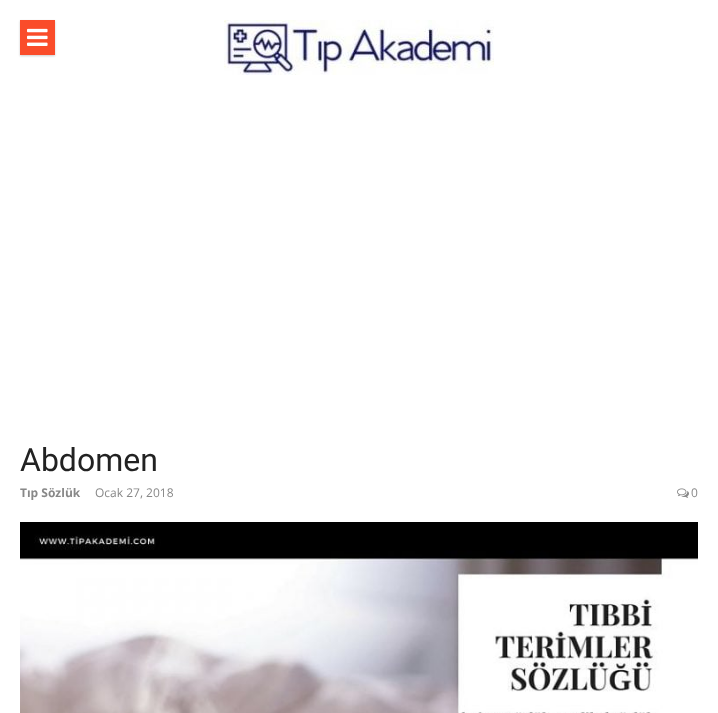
(async () => {
    const canvas = document.querySelector("canvas");
    canvas.width = 718;
    canvas.height = 713;
    const context = canvas.getContext("2d");
    context.miterLimit = 4;
    context.fontKerning = "normal";
    function write(s, x, y, font, color) {
        context.font = font;
        context.fillStyle = color;
        context.fillText(s, x, y);
    }
    function block(x, y, w, h, color) {
        context.fillStyle = color;
        context.fillRect(x, y, w, h);
    }
    async function photo(src, x, y, w, h) {
        const img = new Image();
        img.src = src;
        await img.decode();
        context.drawImage(img, x, y, w, h);
    }

    block(0, 0, 718, 713, "rgb(255, 255, 255)");
    context.fillStyle = "rgba(0, 0, 0, 0.2)";
    context.filter = "blur(1px)";
    context.beginPath();
    context.rect(20, 21, 35, 35);
    context.fill();
    context.filter = "none";
    block(20, 20, 35, 35, "rgb(250, 76, 42)");
    await photo("media/1.png", 27, 28, 21, 18);
    await photo("media/2.png", 224, 20, 270, 55);
    write("Abdomen", 20, 471, "32px Roboto", "rgb(34, 34, 34)");
    write("Tıp Sözlük", 20, 497, "bold 12px Open Sans", "rgb(136, 136, 136)");
    write("Ocak 27, 2018", 95, 497, "12px Open Sans", "rgb(136, 136, 136)");
    await photo("media/3.png", 677, 488, 12, 10);
    write("0", 691, 497, "12px Open Sans", "rgb(136, 136, 136)");
    await photo("media/4.png", 20, 522, 678, 191);
})();
